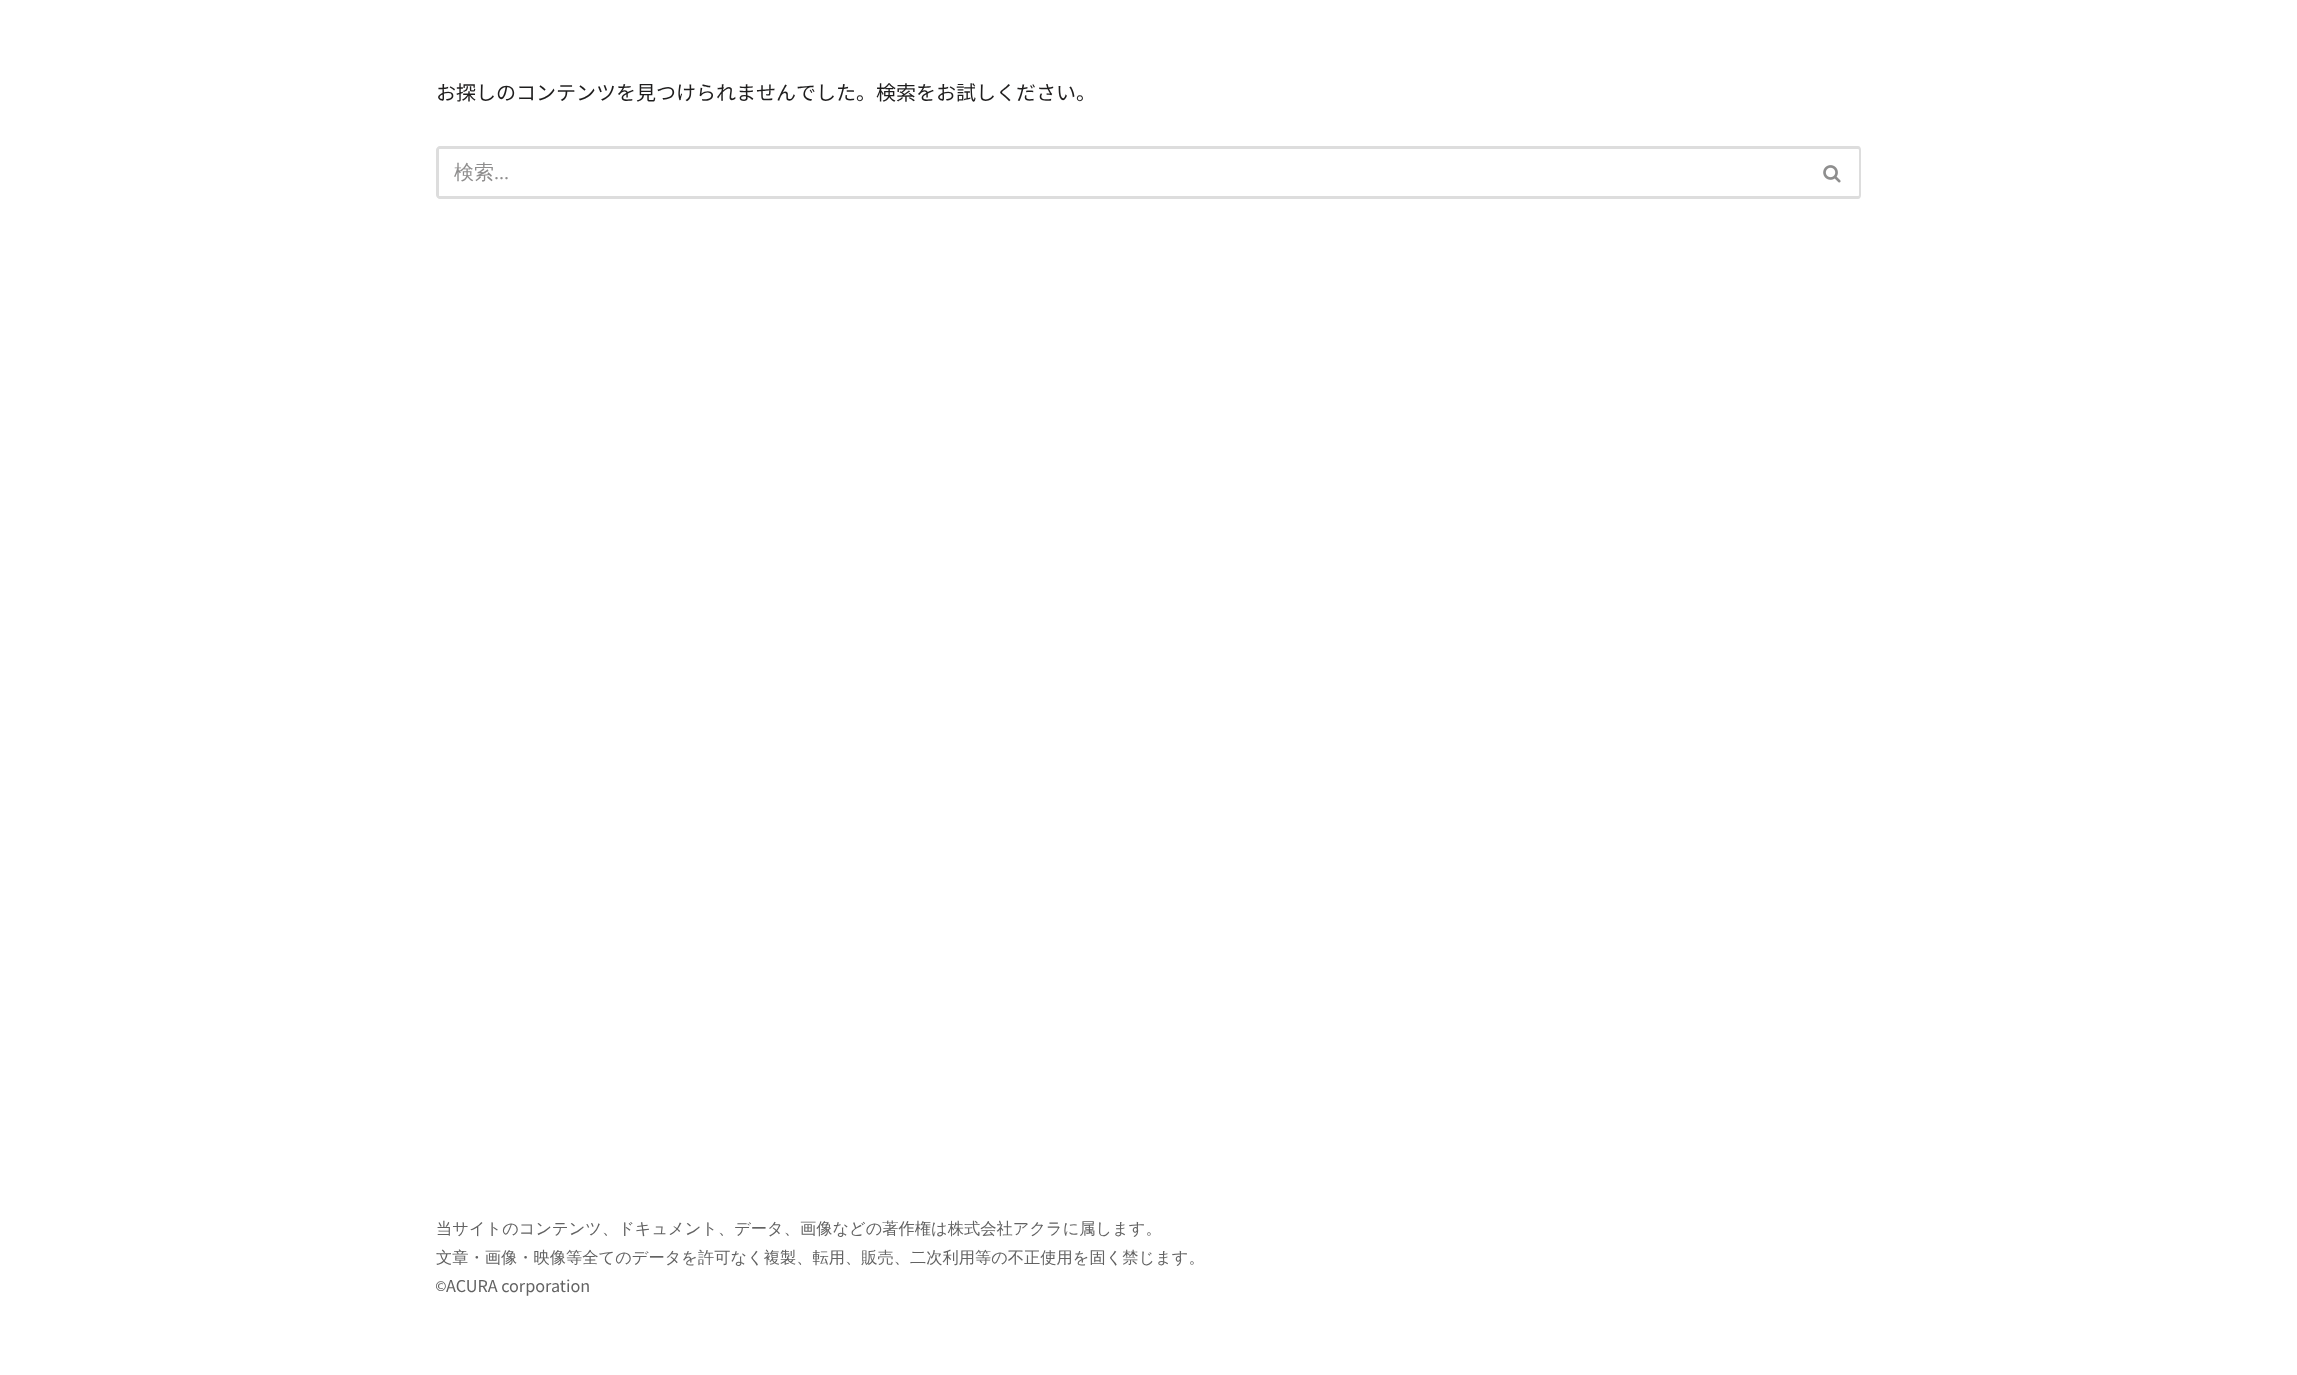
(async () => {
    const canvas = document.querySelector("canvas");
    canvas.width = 2297;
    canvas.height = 1375;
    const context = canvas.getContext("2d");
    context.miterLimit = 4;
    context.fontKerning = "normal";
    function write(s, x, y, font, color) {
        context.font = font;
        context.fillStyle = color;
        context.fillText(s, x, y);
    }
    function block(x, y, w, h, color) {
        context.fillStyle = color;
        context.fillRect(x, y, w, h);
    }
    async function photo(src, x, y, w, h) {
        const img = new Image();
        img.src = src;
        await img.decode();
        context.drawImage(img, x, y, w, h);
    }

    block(0, 0, 2297, 1375, "rgb(255, 255, 255)");
    write("お探しのコンテンツを見つけられませんでした。検索をお試しください。", 436, 100, "20px Noto Sans JP", "rgb(30, 29, 29)");
    context.fillStyle = "rgb(221, 221, 221)";
    context.beginPath();
    context.moveTo(440, 146);
    context.lineTo(1805, 146);
    context.lineTo(1805, 199);
    context.lineTo(440, 199);
    context.bezierCurveTo(438, 199, 436, 197, 436, 195);
    context.lineTo(436, 150);
    context.bezierCurveTo(436, 148, 438, 146, 440, 146);
    context.closePath();
    context.moveTo(440, 149);
    context.lineTo(1805, 149);
    context.lineTo(1805, 196);
    context.lineTo(440, 196);
    context.bezierCurveTo(439, 196, 439, 196, 439, 195);
    context.lineTo(439, 150);
    context.bezierCurveTo(439, 149, 439, 149, 440, 149);
    context.closePath();
    context.fill("evenodd");
    write("検索", 454, 179, "500 20px WenQuanYi Zen Hei", "rgb(143, 142, 142)");
    write("...", 494, 179, "20px Liberation Serif", "rgb(143, 142, 142)");
    context.fillStyle = "rgb(221, 221, 221)";
    context.beginPath();
    context.moveTo(1805, 146);
    context.lineTo(1858, 146);
    context.bezierCurveTo(1860, 146, 1861, 148, 1861, 150);
    context.lineTo(1861, 195);
    context.bezierCurveTo(1861, 197, 1860, 199, 1858, 199);
    context.lineTo(1805, 199);
    context.closePath();
    context.moveTo(1805, 149);
    context.lineTo(1858, 149);
    context.bezierCurveTo(1858, 149, 1859, 149, 1859, 150);
    context.lineTo(1859, 195);
    context.bezierCurveTo(1859, 196, 1858, 196, 1858, 196);
    context.lineTo(1805, 196);
    context.closePath();
    context.fill("evenodd");
    await photo("media/1.png", 1823, 165, 18, 18);
    write("当サイトのコンテンツ、ドキュメント、データ、画像などの著作権は株式会社アクラに属します。", 436, 1234, "500 16.25px WenQuanYi Zen Hei", "rgb(98, 98, 98)");
    write("文章・画像・映像等全てのデータを許可なく複製、転用、販売、二次利用等の不正使用を固く禁じます。", 436, 1263, "500 16.25px WenQuanYi Zen Hei", "rgb(98, 98, 98)");
    write("©", 436, 1292, "16.25px DejaVu Sans Mono", "rgb(98, 98, 98)");
    write("ACURA corporation", 446, 1292, "16.25px Noto Sans JP", "rgb(98, 98, 98)");
})();
